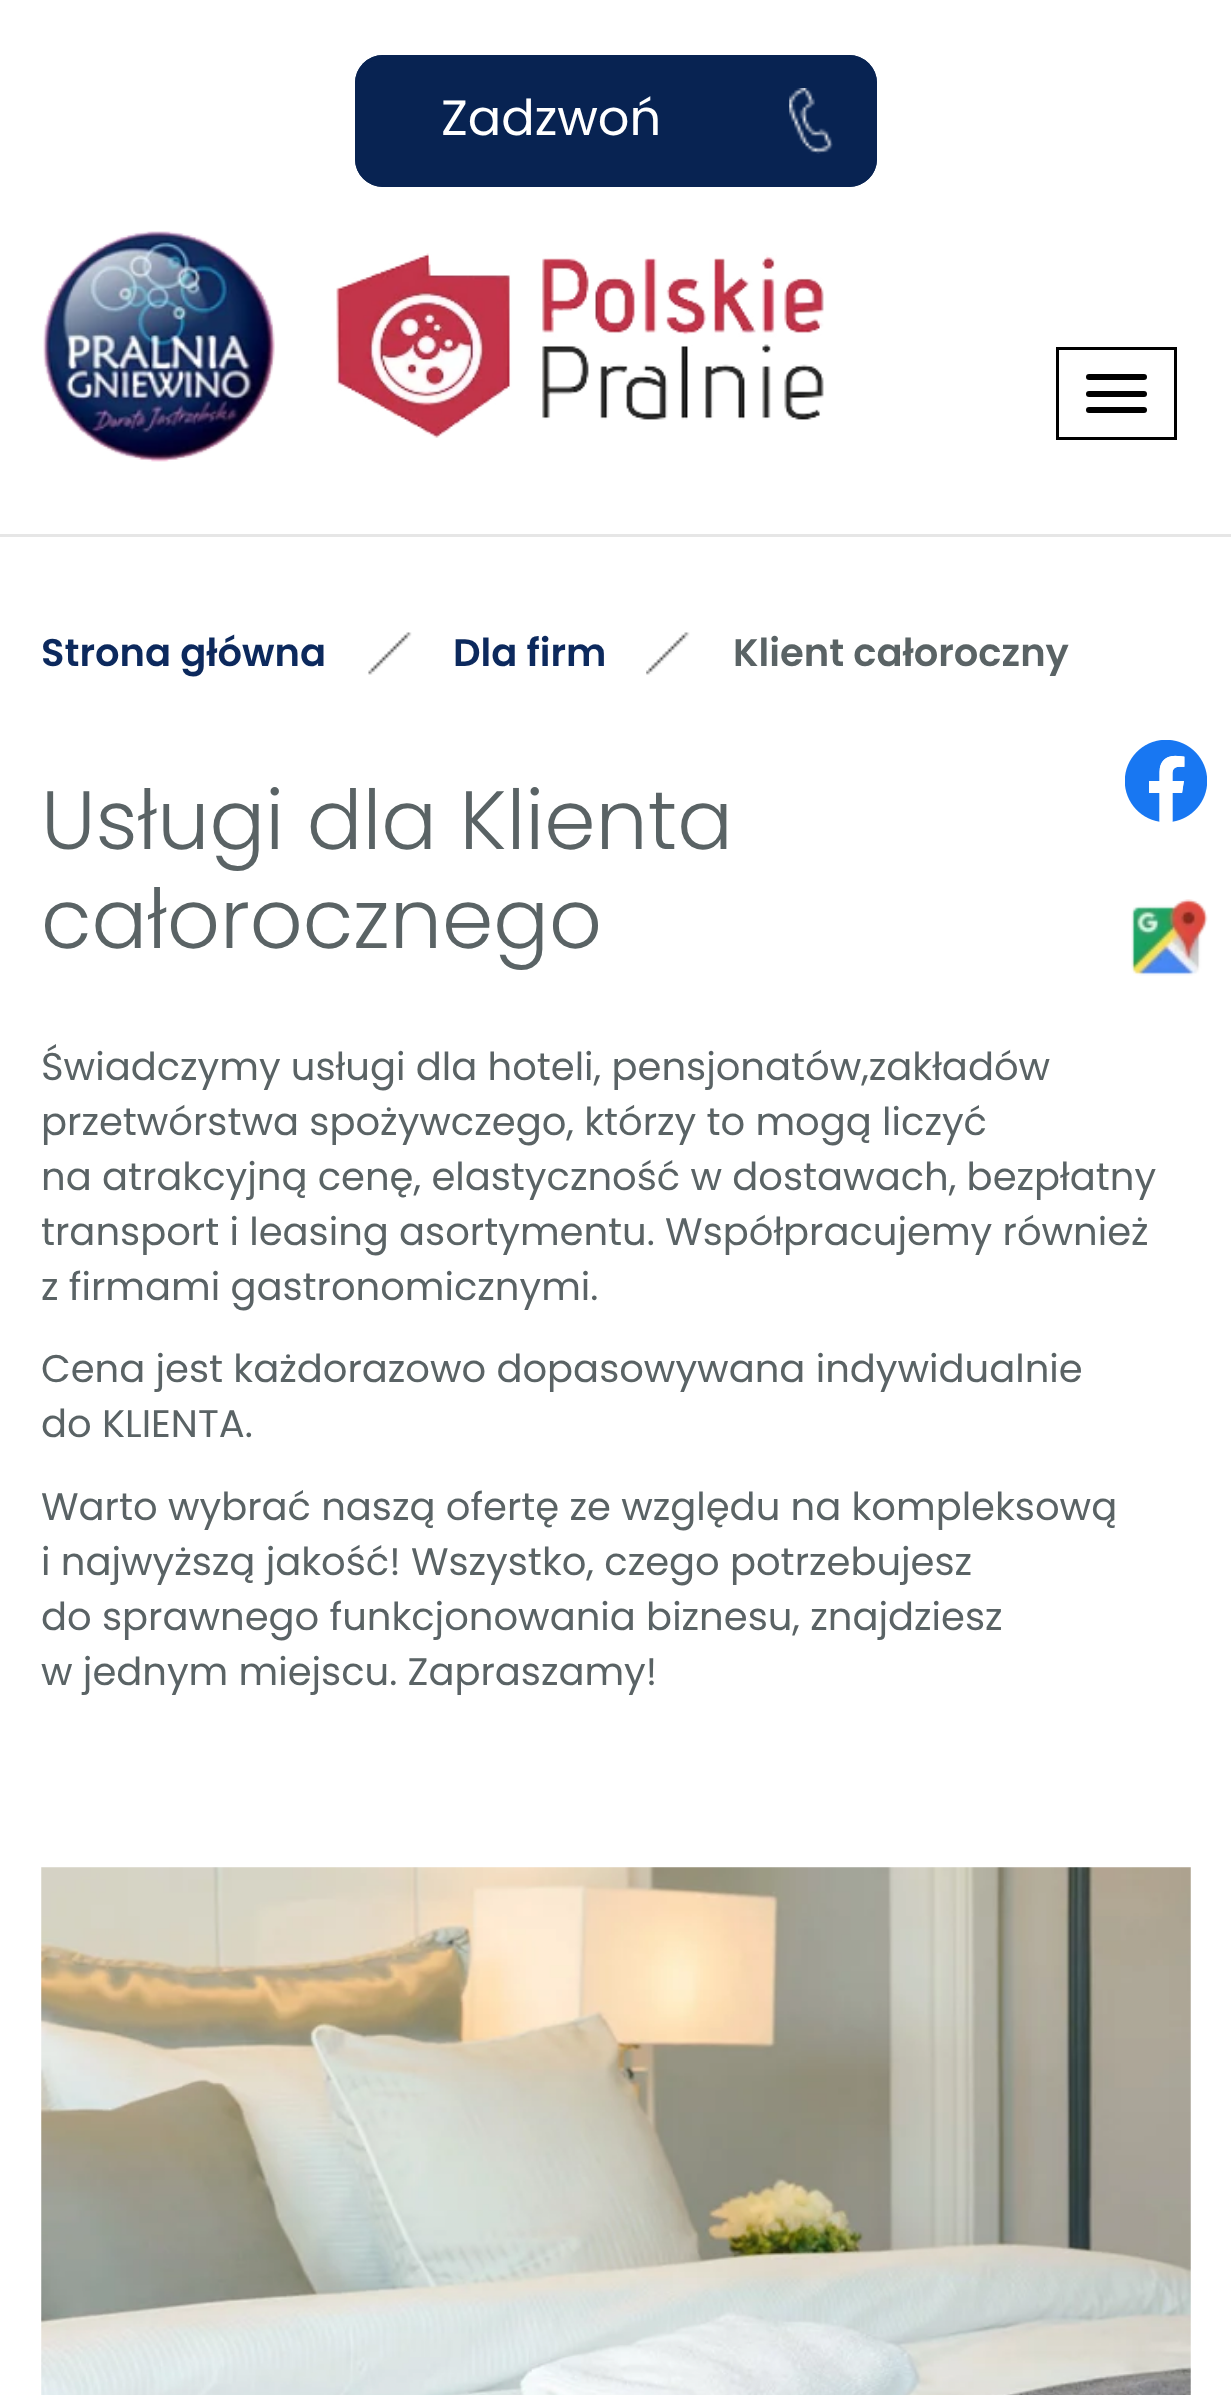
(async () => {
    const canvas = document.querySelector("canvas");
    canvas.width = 1231;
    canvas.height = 2395;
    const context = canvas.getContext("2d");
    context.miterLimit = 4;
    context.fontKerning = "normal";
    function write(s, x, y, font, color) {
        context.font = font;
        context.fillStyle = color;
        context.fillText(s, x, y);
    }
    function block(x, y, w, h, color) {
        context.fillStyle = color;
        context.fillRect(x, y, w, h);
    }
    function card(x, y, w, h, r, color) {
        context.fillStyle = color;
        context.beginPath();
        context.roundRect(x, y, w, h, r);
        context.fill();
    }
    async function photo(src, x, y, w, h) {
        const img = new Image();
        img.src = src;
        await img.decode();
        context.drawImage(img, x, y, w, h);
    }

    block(0, 0, 1231, 2395, "rgb(255, 255, 255)");
    block(0, 534, 1231, 3, "rgb(230, 230, 230)");
    card(355, 55, 522, 132, 28, "rgb(8, 35, 82)");
    await photo("media/1.png", 789, 88, 44, 66);
    context.beginPath();
    context.roundRect(356.5, 56.5, 519, 129, 26.5);
    context.strokeStyle = "rgb(8, 35, 82)";
    context.lineWidth = 3;
    context.stroke();
    write("Zadzwoń", 441, 135, "49.5px Poppins", "rgb(255, 255, 255)");
    await photo("media/2.png", 43, 231, 781, 231);
    context.strokeStyle = "rgb(0, 0, 0)";
    context.strokeRect(1057.5, 348.5, 118, 90);
    card(1086, 374, 61, 6, 3, "rgb(0, 0, 0)");
    card(1086, 391, 61, 6, 3, "rgb(0, 0, 0)");
    card(1086, 407, 61, 6, 3, "rgb(0, 0, 0)");
    write("Strona główna", 41, 666, "600 38.5px Poppins", "rgb(12, 41, 93)");
    await photo("media/3.png", 368, 632, 44, 43);
    write("Dla firm", 453, 666, "600 38.5px Poppins", "rgb(12, 41, 93)");
    await photo("media/4.png", 646, 632, 44, 43);
    write("Klient całoroczny", 733, 666, "600 38.5px Poppins", "rgb(90, 99, 101)");
    write("Usługi dla Klienta", 41, 849, "300 82.5px Poppins", "rgb(90, 99, 101)");
    write("całorocznego", 41, 948, "300 82.5px Poppins", "rgb(90, 99, 101)");
    write("Świadczymy usługi dla hoteli, pensjonatów,zakładów", 41, 1080, "38.5px Poppins", "rgb(90, 99, 101)");
    write("przetwórstwa spożywczego, którzy to mogą liczyć", 41, 1135, "38.5px Poppins", "rgb(90, 99, 101)");
    write("na atrakcyjną cenę, elastyczność w dostawach, bezpłatny", 41, 1190, "38.5px Poppins", "rgb(90, 99, 101)");
    write("transport i leasing asortymentu. Współpracujemy również", 41, 1245, "38.5px Poppins", "rgb(90, 99, 101)");
    write("z firmami gastronomicznymi.", 41, 1300, "38.5px Poppins", "rgb(90, 99, 101)");
    write("Cena jest każdorazowo dopasowywana indywidualnie", 41, 1382, "38.5px Poppins", "rgb(90, 99, 101)");
    write("do KLIENTA.", 41, 1437, "38.5px Poppins", "rgb(90, 99, 101)");
    write("Warto wybrać naszą ofertę ze względu na kompleksową", 41, 1520, "38.5px Poppins", "rgb(90, 99, 101)");
    write("i najwyższą jakość! Wszystko, czego potrzebujesz", 41, 1575, "38.5px Poppins", "rgb(90, 99, 101)");
    write("do sprawnego funkcjonowania biznesu, znajdziesz", 41, 1630, "38.5px Poppins", "rgb(90, 99, 101)");
    write("w jednym miejscu. Zapraszamy!", 41, 1685, "38.5px Poppins", "rgb(90, 99, 101)");
    await photo("media/5.png", 41, 1867, 1150, 528);
    await photo("media/6.png", 1125, 740, 82, 82);
    await photo("media/7.png", 1131, 899, 77, 77);
})();
